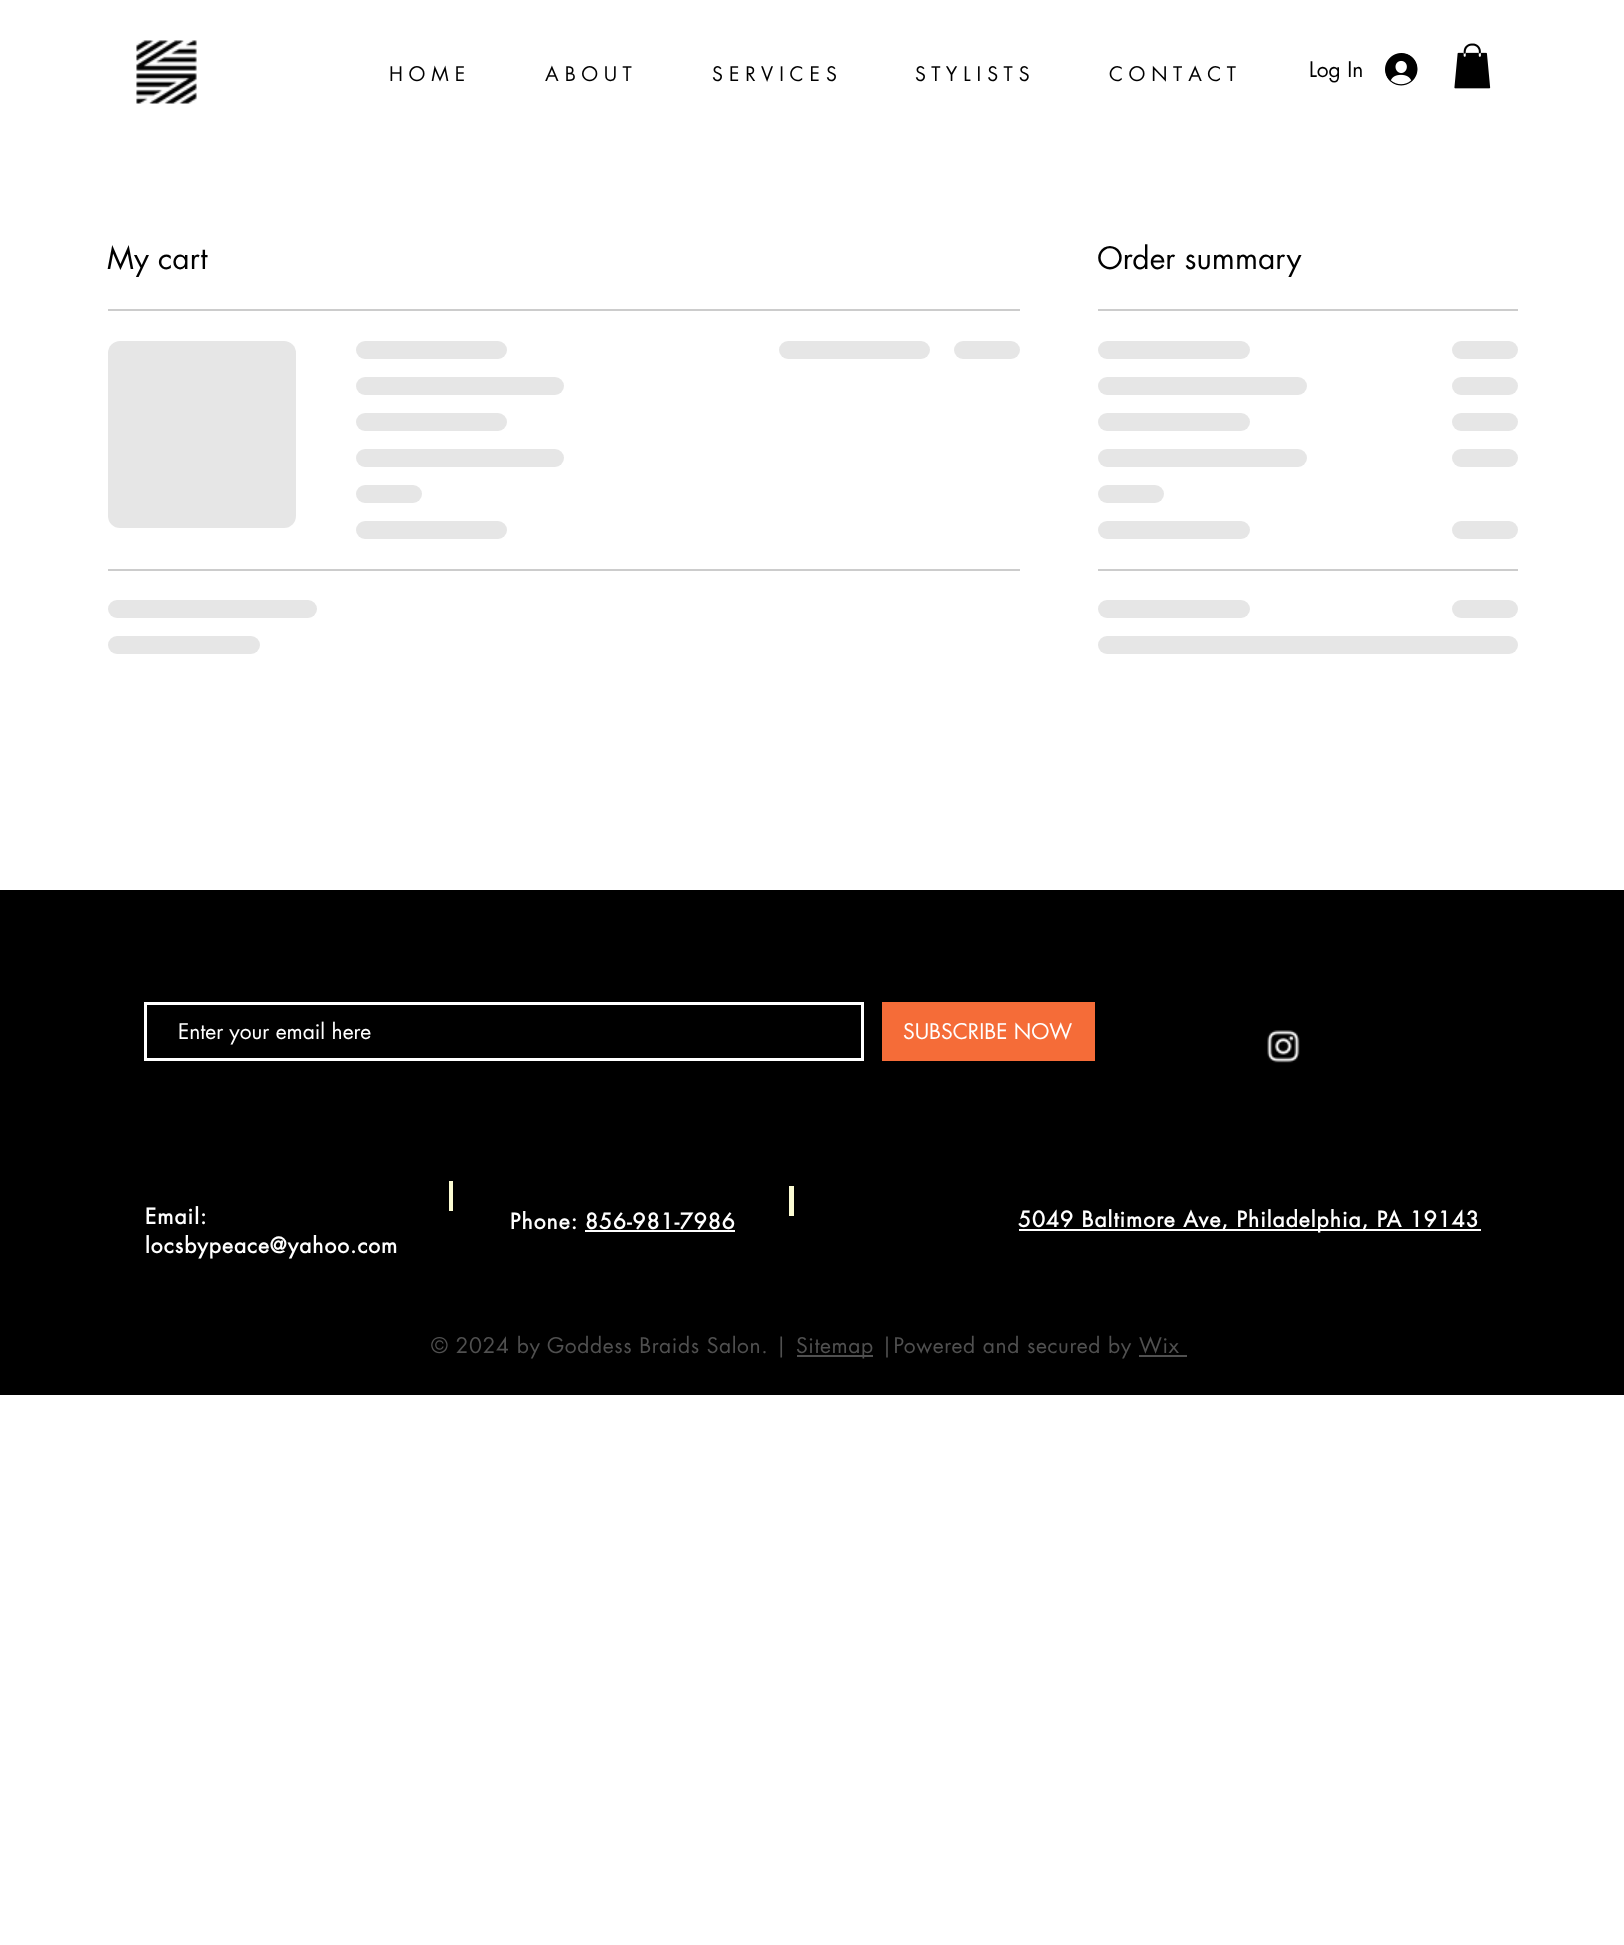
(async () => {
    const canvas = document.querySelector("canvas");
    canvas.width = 1624;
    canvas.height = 1945;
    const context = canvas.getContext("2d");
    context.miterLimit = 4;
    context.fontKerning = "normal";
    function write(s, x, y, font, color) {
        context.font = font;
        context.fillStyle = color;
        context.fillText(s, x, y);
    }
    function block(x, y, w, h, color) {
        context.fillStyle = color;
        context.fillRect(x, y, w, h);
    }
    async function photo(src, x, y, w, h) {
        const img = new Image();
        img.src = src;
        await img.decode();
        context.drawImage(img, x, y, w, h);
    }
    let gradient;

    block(0, 0, 1624, 1945, "rgb(255, 255, 255)");
    await photo("media/1.png", 136, 40, 61, 64);
    write("H O M E", 389, 81, "19.5px futura", "rgb(0, 0, 0)");
    write("A B O U T", 545, 81, "19.5px futura", "rgb(0, 0, 0)");
    write("S E R V I C E S", 712, 81, "19.5px futura", "rgb(0, 0, 0)");
    write("S T Y L I S T S", 915, 81, "19.5px futura", "rgb(0, 0, 0)");
    write("C O N T A C T", 1109, 81, "19.5px futura", "rgb(0, 0, 0)");
    write("Log In", 1309, 77, "21px futura", "rgb(0, 0, 0)");
    await photo("media/2.png", 1385, 53, 33, 33);
    await photo("media/3.png", 1454, 43, 37, 46);
    block(108, 309, 912, 2, "rgb(204, 204, 204)");
    write("My cart", 107, 269, "30px futura", "rgb(0, 0, 0)");
    gradient = context.createLinearGradient(108, 434, 858, 434);
    gradient.addColorStop(0.25, "rgb(230, 230, 230)");
    gradient.addColorStop(0.37, "rgb(204, 204, 204)");
    gradient.addColorStop(0.63, "rgb(230, 230, 230)");
    context.fillStyle = gradient;
    context.beginPath();
    context.roundRect(108, 341, 188, 187, 12);
    context.fill();
    gradient = context.createLinearGradient(356, 350, 962, 350);
    gradient.addColorStop(0.25, "rgb(230, 230, 230)");
    gradient.addColorStop(0.37, "rgb(204, 204, 204)");
    gradient.addColorStop(0.63, "rgb(230, 230, 230)");
    context.fillStyle = gradient;
    context.beginPath();
    context.roundRect(356, 341, 151, 18, 9);
    context.fill();
    gradient = context.createLinearGradient(356, 386, 1190, 386);
    gradient.addColorStop(0.25, "rgb(230, 230, 230)");
    gradient.addColorStop(0.37, "rgb(204, 204, 204)");
    gradient.addColorStop(0.63, "rgb(230, 230, 230)");
    context.fillStyle = gradient;
    context.beginPath();
    context.roundRect(356, 377, 208, 18, 9);
    context.fill();
    gradient = context.createLinearGradient(356, 422, 962, 422);
    gradient.addColorStop(0.25, "rgb(230, 230, 230)");
    gradient.addColorStop(0.37, "rgb(204, 204, 204)");
    gradient.addColorStop(0.63, "rgb(230, 230, 230)");
    context.fillStyle = gradient;
    context.beginPath();
    context.roundRect(356, 413, 151, 18, 9);
    context.fill();
    gradient = context.createLinearGradient(356, 458, 1190, 458);
    gradient.addColorStop(0.25, "rgb(230, 230, 230)");
    gradient.addColorStop(0.37, "rgb(204, 204, 204)");
    gradient.addColorStop(0.63, "rgb(230, 230, 230)");
    context.fillStyle = gradient;
    context.beginPath();
    context.roundRect(356, 449, 208, 18, 9);
    context.fill();
    gradient = context.createLinearGradient(356, 494, 620, 494);
    gradient.addColorStop(0.25, "rgb(230, 230, 230)");
    gradient.addColorStop(0.37, "rgb(204, 204, 204)");
    gradient.addColorStop(0.63, "rgb(230, 230, 230)");
    context.fillStyle = gradient;
    context.beginPath();
    context.roundRect(356, 485, 66, 18, 9);
    context.fill();
    gradient = context.createLinearGradient(356, 530, 962, 530);
    gradient.addColorStop(0.25, "rgb(230, 230, 230)");
    gradient.addColorStop(0.37, "rgb(204, 204, 204)");
    gradient.addColorStop(0.63, "rgb(230, 230, 230)");
    context.fillStyle = gradient;
    context.beginPath();
    context.roundRect(356, 521, 151, 18, 9);
    context.fill();
    gradient = context.createLinearGradient(779, 350, 1385, 350);
    gradient.addColorStop(0.25, "rgb(230, 230, 230)");
    gradient.addColorStop(0.37, "rgb(204, 204, 204)");
    gradient.addColorStop(0.63, "rgb(230, 230, 230)");
    context.fillStyle = gradient;
    context.beginPath();
    context.roundRect(779, 341, 151, 18, 9);
    context.fill();
    gradient = context.createLinearGradient(954, 350, 1218, 350);
    gradient.addColorStop(0.25, "rgb(230, 230, 230)");
    gradient.addColorStop(0.37, "rgb(204, 204, 204)");
    gradient.addColorStop(0.63, "rgb(230, 230, 230)");
    context.fillStyle = gradient;
    context.beginPath();
    context.roundRect(954, 341, 66, 18, 9);
    context.fill();
    block(108, 569, 912, 2, "rgb(204, 204, 204)");
    gradient = context.createLinearGradient(108, 609, 942, 609);
    gradient.addColorStop(0.25, "rgb(230, 230, 230)");
    gradient.addColorStop(0.37, "rgb(204, 204, 204)");
    gradient.addColorStop(0.63, "rgb(230, 230, 230)");
    context.fillStyle = gradient;
    context.beginPath();
    context.roundRect(108, 600, 209, 18, 9);
    context.fill();
    gradient = context.createLinearGradient(108, 645, 714, 645);
    gradient.addColorStop(0.25, "rgb(230, 230, 230)");
    gradient.addColorStop(0.37, "rgb(204, 204, 204)");
    gradient.addColorStop(0.63, "rgb(230, 230, 230)");
    context.fillStyle = gradient;
    context.beginPath();
    context.roundRect(108, 636, 152, 18, 9);
    context.fill();
    block(1098, 309, 420, 2, "rgb(204, 204, 204)");
    write("Order summary", 1097, 269, "30px futura", "rgb(0, 0, 0)");
    gradient = context.createLinearGradient(1098, 350, 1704, 350);
    gradient.addColorStop(0.25, "rgb(230, 230, 230)");
    gradient.addColorStop(0.37, "rgb(204, 204, 204)");
    gradient.addColorStop(0.63, "rgb(230, 230, 230)");
    context.fillStyle = gradient;
    context.beginPath();
    context.roundRect(1098, 341, 152, 18, 9);
    context.fill();
    gradient = context.createLinearGradient(1452, 350, 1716, 350);
    gradient.addColorStop(0.25, "rgb(230, 230, 230)");
    gradient.addColorStop(0.37, "rgb(204, 204, 204)");
    gradient.addColorStop(0.63, "rgb(230, 230, 230)");
    context.fillStyle = gradient;
    context.beginPath();
    context.roundRect(1452, 341, 66, 18, 9);
    context.fill();
    gradient = context.createLinearGradient(1098, 386, 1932, 386);
    gradient.addColorStop(0.25, "rgb(230, 230, 230)");
    gradient.addColorStop(0.37, "rgb(204, 204, 204)");
    gradient.addColorStop(0.63, "rgb(230, 230, 230)");
    context.fillStyle = gradient;
    context.beginPath();
    context.roundRect(1098, 377, 209, 18, 9);
    context.fill();
    gradient = context.createLinearGradient(1452, 386, 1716, 386);
    gradient.addColorStop(0.25, "rgb(230, 230, 230)");
    gradient.addColorStop(0.37, "rgb(204, 204, 204)");
    gradient.addColorStop(0.63, "rgb(230, 230, 230)");
    context.fillStyle = gradient;
    context.beginPath();
    context.roundRect(1452, 377, 66, 18, 9);
    context.fill();
    gradient = context.createLinearGradient(1098, 422, 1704, 422);
    gradient.addColorStop(0.25, "rgb(230, 230, 230)");
    gradient.addColorStop(0.37, "rgb(204, 204, 204)");
    gradient.addColorStop(0.63, "rgb(230, 230, 230)");
    context.fillStyle = gradient;
    context.beginPath();
    context.roundRect(1098, 413, 152, 18, 9);
    context.fill();
    gradient = context.createLinearGradient(1452, 422, 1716, 422);
    gradient.addColorStop(0.25, "rgb(230, 230, 230)");
    gradient.addColorStop(0.37, "rgb(204, 204, 204)");
    gradient.addColorStop(0.63, "rgb(230, 230, 230)");
    context.fillStyle = gradient;
    context.beginPath();
    context.roundRect(1452, 413, 66, 18, 9);
    context.fill();
    gradient = context.createLinearGradient(1098, 458, 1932, 458);
    gradient.addColorStop(0.25, "rgb(230, 230, 230)");
    gradient.addColorStop(0.37, "rgb(204, 204, 204)");
    gradient.addColorStop(0.63, "rgb(230, 230, 230)");
    context.fillStyle = gradient;
    context.beginPath();
    context.roundRect(1098, 449, 209, 18, 9);
    context.fill();
    gradient = context.createLinearGradient(1452, 458, 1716, 458);
    gradient.addColorStop(0.25, "rgb(230, 230, 230)");
    gradient.addColorStop(0.37, "rgb(204, 204, 204)");
    gradient.addColorStop(0.63, "rgb(230, 230, 230)");
    context.fillStyle = gradient;
    context.beginPath();
    context.roundRect(1452, 449, 66, 18, 9);
    context.fill();
    gradient = context.createLinearGradient(1098, 494, 1362, 494);
    gradient.addColorStop(0.25, "rgb(230, 230, 230)");
    gradient.addColorStop(0.37, "rgb(204, 204, 204)");
    gradient.addColorStop(0.63, "rgb(230, 230, 230)");
    context.fillStyle = gradient;
    context.beginPath();
    context.roundRect(1098, 485, 66, 18, 9);
    context.fill();
    gradient = context.createLinearGradient(1098, 530, 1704, 530);
    gradient.addColorStop(0.25, "rgb(230, 230, 230)");
    gradient.addColorStop(0.37, "rgb(204, 204, 204)");
    gradient.addColorStop(0.63, "rgb(230, 230, 230)");
    context.fillStyle = gradient;
    context.beginPath();
    context.roundRect(1098, 521, 152, 18, 9);
    context.fill();
    gradient = context.createLinearGradient(1452, 530, 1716, 530);
    gradient.addColorStop(0.25, "rgb(230, 230, 230)");
    gradient.addColorStop(0.37, "rgb(204, 204, 204)");
    gradient.addColorStop(0.63, "rgb(230, 230, 230)");
    context.fillStyle = gradient;
    context.beginPath();
    context.roundRect(1452, 521, 66, 18, 9);
    context.fill();
    block(1098, 569, 420, 2, "rgb(204, 204, 204)");
    gradient = context.createLinearGradient(1098, 609, 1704, 609);
    gradient.addColorStop(0.25, "rgb(230, 230, 230)");
    gradient.addColorStop(0.37, "rgb(204, 204, 204)");
    gradient.addColorStop(0.63, "rgb(230, 230, 230)");
    context.fillStyle = gradient;
    context.beginPath();
    context.roundRect(1098, 600, 152, 18, 9);
    context.fill();
    gradient = context.createLinearGradient(1452, 609, 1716, 609);
    gradient.addColorStop(0.25, "rgb(230, 230, 230)");
    gradient.addColorStop(0.37, "rgb(204, 204, 204)");
    gradient.addColorStop(0.63, "rgb(230, 230, 230)");
    context.fillStyle = gradient;
    context.beginPath();
    context.roundRect(1452, 600, 66, 18, 9);
    context.fill();
    gradient = context.createLinearGradient(1098, 645, 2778, 645);
    gradient.addColorStop(0.25, "rgb(230, 230, 230)");
    gradient.addColorStop(0.37, "rgb(204, 204, 204)");
    gradient.addColorStop(0.63, "rgb(230, 230, 230)");
    context.fillStyle = gradient;
    context.beginPath();
    context.roundRect(1098, 636, 420, 18, 9);
    context.fill();
    block(0, 890, 1624, 505, "rgb(0, 0, 0)");
    context.strokeStyle = "rgb(255, 255, 255)";
    context.lineWidth = 3;
    context.strokeRect(145.5, 1003.5, 717, 56);
    write("Enter your email here", 178, 1039, "21px futura", "rgb(255, 255, 255)");
    block(882, 1002, 213, 59, "rgb(245, 108, 56)");
    write("SUBSCRIBE NOW", 903, 1039, "21px futura", "rgb(255, 255, 255)");
    await photo("media/4.png", 1267, 1030, 33, 33);
    block(449, 1181, 4, 30, "rgb(251, 251, 210)");
    block(789, 1186, 5, 30, "rgb(251, 251, 210)");
    context.letterSpacing = "1.05px";
    write("Email:", 145, 1224, "bold 21px futura", "rgb(255, 255, 255)");
    write("locsbypeace@yahoo.com", 145, 1253, "bold 21px futura", "rgb(255, 255, 255)");
    write("Phone: 856-981-7986", 510, 1229, "bold 21px futura", "rgb(255, 255, 255)");
    block(585, 1230, 150, 2, "rgb(255, 255, 255)");
    block(1019, 1229, 462, 2, "rgb(255, 255, 255)");
    write("5049 Baltimore Ave, Philadelphia, PA 19143", 1018, 1227, "bold 21px futura", "rgb(255, 255, 255)");
    context.letterSpacing = "0.6px";
    write("© 2024 by Goddess Braids Salon. |", 431, 1353, "21px futura", "rgb(80, 80, 80)");
    block(797, 1355, 76, 2, "rgb(80, 80, 80)");
    write("Sitemap", 796, 1353, "21px futura", "rgb(80, 80, 80)");
    write("|Powered and secured by", 881, 1353, "21px futura", "rgb(80, 80, 80)");
    write("Wix", 1139, 1353, "21px futura", "rgb(80, 80, 80)");
    block(1139, 1355, 48, 2, "rgb(80, 80, 80)");
})();
